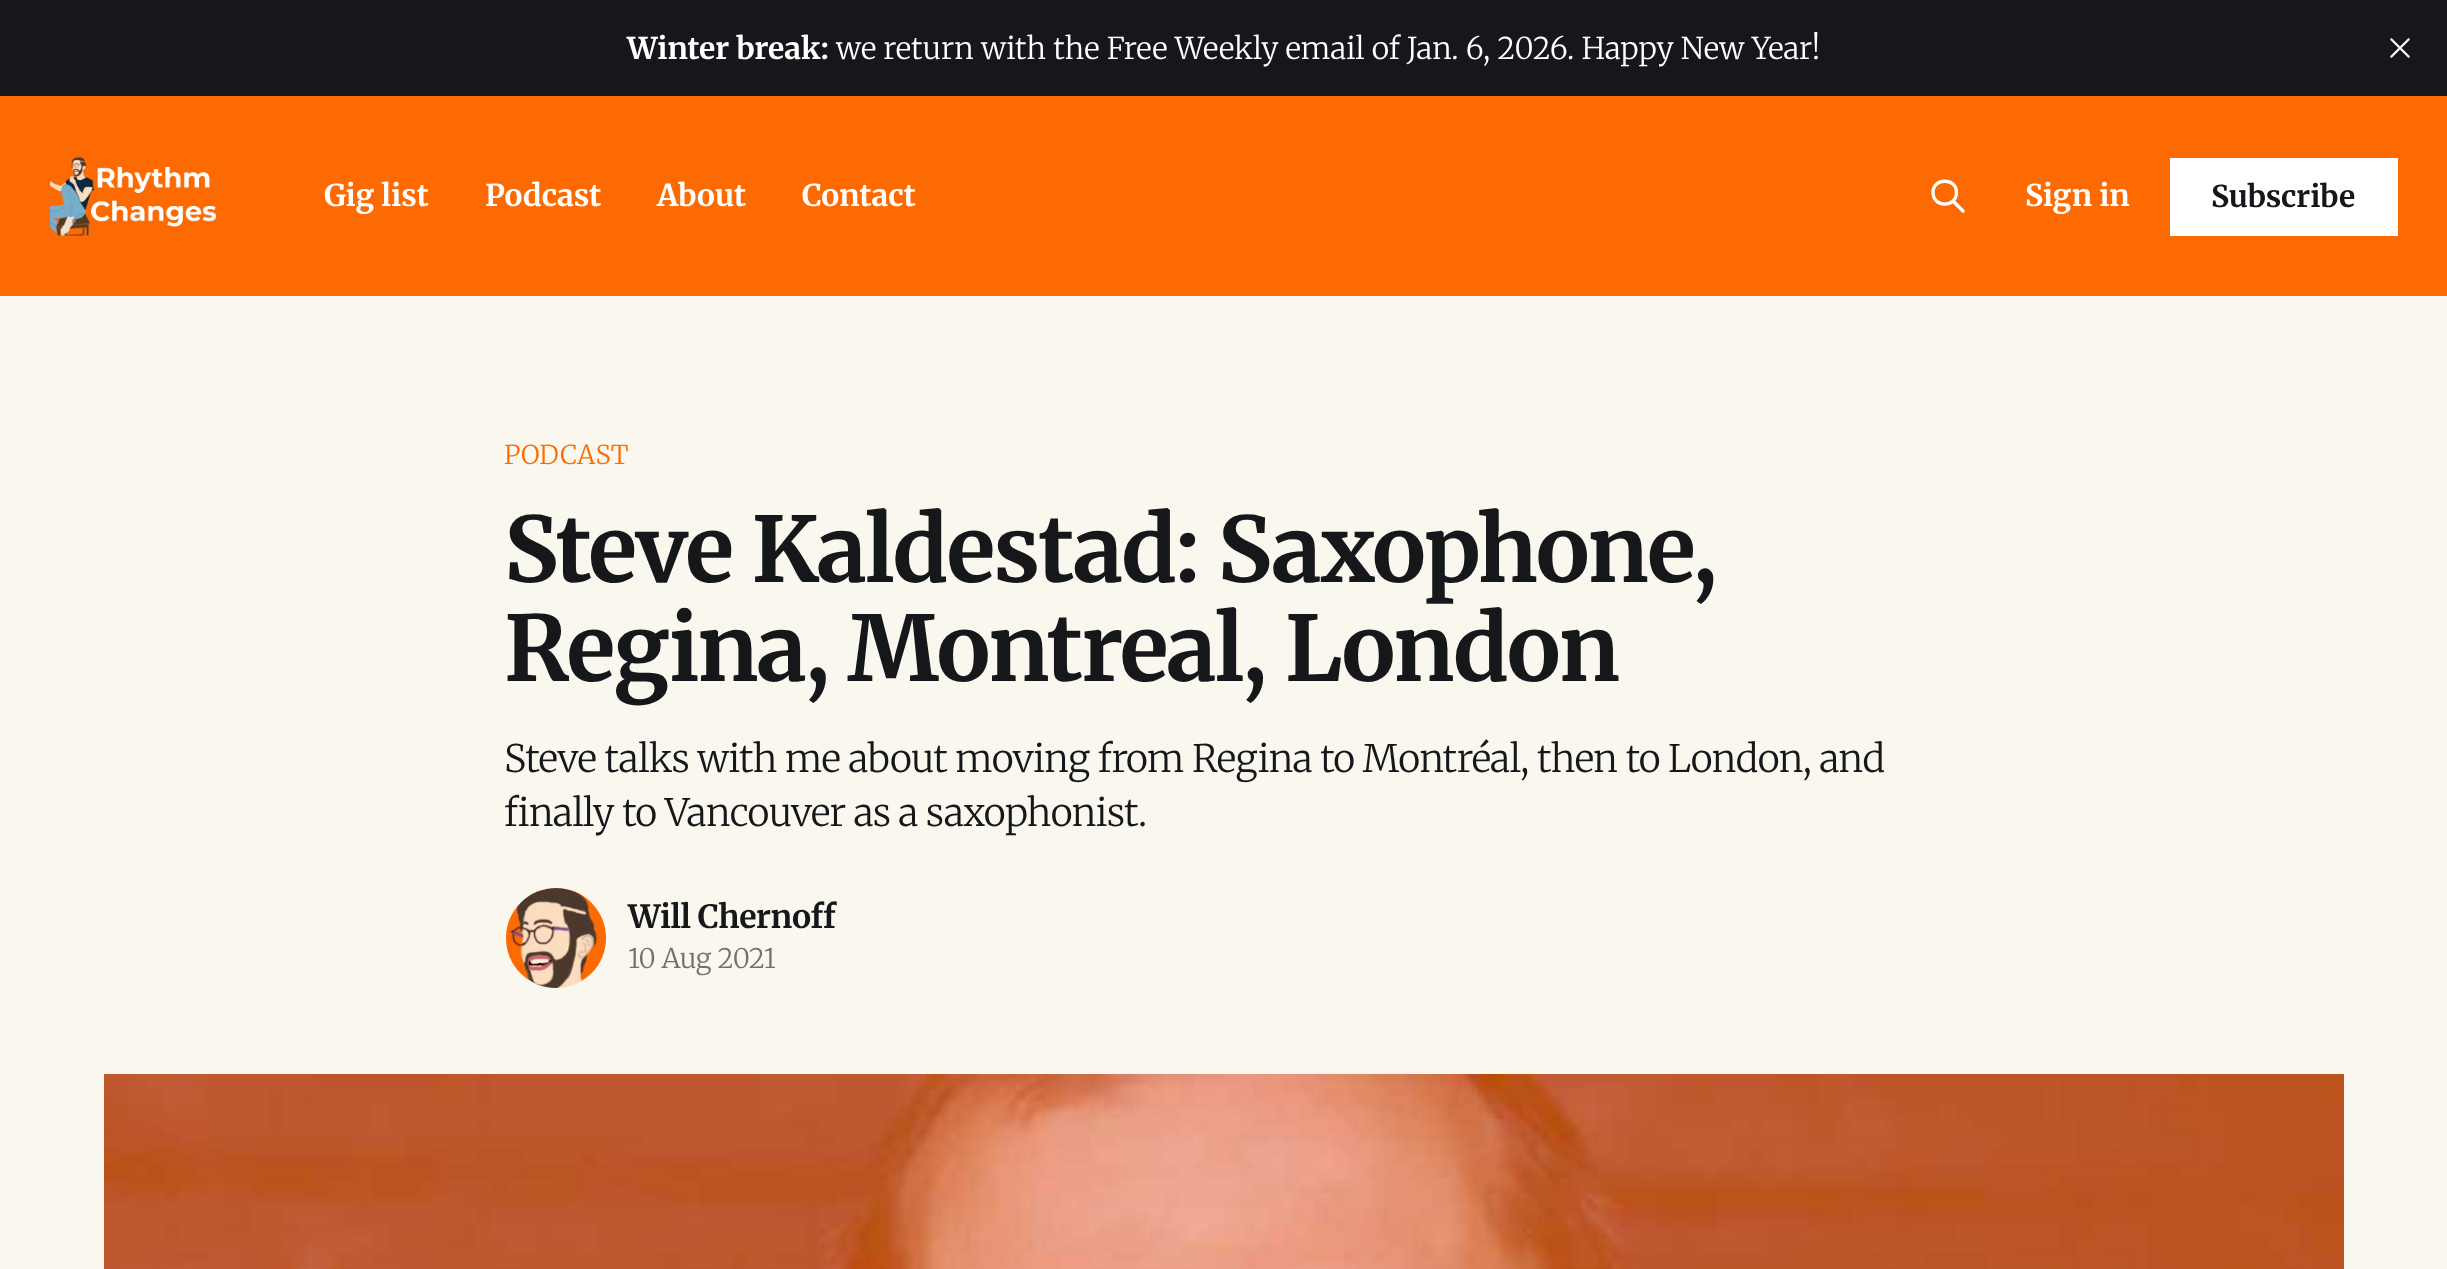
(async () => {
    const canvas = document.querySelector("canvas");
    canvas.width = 2447;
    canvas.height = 1269;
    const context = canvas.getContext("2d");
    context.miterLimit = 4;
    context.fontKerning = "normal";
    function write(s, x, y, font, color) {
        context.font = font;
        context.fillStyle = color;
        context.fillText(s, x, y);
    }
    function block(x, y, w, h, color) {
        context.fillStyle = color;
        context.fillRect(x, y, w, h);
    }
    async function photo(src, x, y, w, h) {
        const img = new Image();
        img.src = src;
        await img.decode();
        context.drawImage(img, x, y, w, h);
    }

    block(0, 0, 2447, 1269, "rgb(250, 248, 238)");
    block(0, 0, 2447, 96, "rgb(21, 23, 26)");
    write("Winter break:", 627, 59, "300 30px Merriweather", "rgb(255, 255, 255)");
    write("we return with the Free Weekly email of Jan. 6, 2026. Happy New Year!", 836, 59, "300 30px 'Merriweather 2'", "rgb(255, 255, 255)");
    await photo("media/1.png", 2390, 38, 20, 20);
    block(0, 96, 2447, 200, "rgb(253, 106, 2)");
    await photo("media/2.png", 50, 157, 167, 79);
    write("Gig list", 324, 206, "300 30px Merriweather", "rgb(255, 255, 255)");
    write("Podcast", 485, 206, "300 30px Merriweather", "rgb(255, 255, 255)");
    write("About", 657, 206, "300 30px Merriweather", "rgb(255, 255, 255)");
    write("Contact", 802, 206, "300 30px Merriweather", "rgb(255, 255, 255)");
    context.beginPath();
    context.moveTo(1963, 211);
    context.lineTo(1953, 201);
    context.moveTo(1956.5, 192.5);
    context.bezierCurveTo(1956.5, 208, 1933, 208, 1933, 192.5);
    context.bezierCurveTo(1933, 177.5, 1956.5, 177.5, 1956.5, 192.5);
    context.closePath();
    context.strokeStyle = "rgb(255, 255, 255)";
    context.lineWidth = 3.3;
    context.lineCap = "round";
    context.lineJoin = "round";
    context.stroke();
    write("Sign in", 2025, 206, "300 30px Merriweather", "rgb(255, 255, 255)");
    block(2170, 158, 228, 78, "rgb(255, 255, 255)");
    context.letterSpacing = "-0.1px";
    write("Subscribe", 2211, 207, "300 30px Merriweather", "rgb(21, 23, 26)");
    context.letterSpacing = "0.25px";
    write("PODCAST", 504, 464, "300 26px 'Merriweather 2'", "rgb(253, 106, 2)");
    context.letterSpacing = "-2px";
    write("Steve Kaldestad: Saxophone,", 504, 582, "300 90.25px Merriweather", "rgb(21, 23, 26)");
    write("Regina, Montreal, London", 504, 681, "300 90.25px Merriweather", "rgb(21, 23, 26)");
    context.letterSpacing = "-0.68px";
    write("Steve talks with me about moving from Regina to Montréal, then to London, and", 504, 772, "300 37.85px 'Merriweather 2'", "rgb(21, 23, 26)");
    write("finally to Vancouver as a saxophonist.", 504, 826, "300 37.85px 'Merriweather 2'", "rgb(21, 23, 26)");
    context.fillStyle = "rgb(230, 230, 230)";
    context.beginPath();
    context.arc(556, 938, 53, 0, Math.PI * 2);
    context.fill();
    context.strokeStyle = "rgb(250, 248, 238)";
    context.lineWidth = 6;
    context.stroke();
    await photo("media/3.png", 506, 888, 100, 100);
    context.letterSpacing = "-0.4px";
    write("Will Chernoff", 628, 928, "300 32px Merriweather", "rgb(21, 23, 26)");
    context.letterSpacing = "-0.25px";
    write("10 Aug 2021", 628, 968, "300 27px 'Merriweather 2'", "rgb(113, 112, 107)");
    await photo("media/4.png", 104, 1074, 2240, 195);
})();
